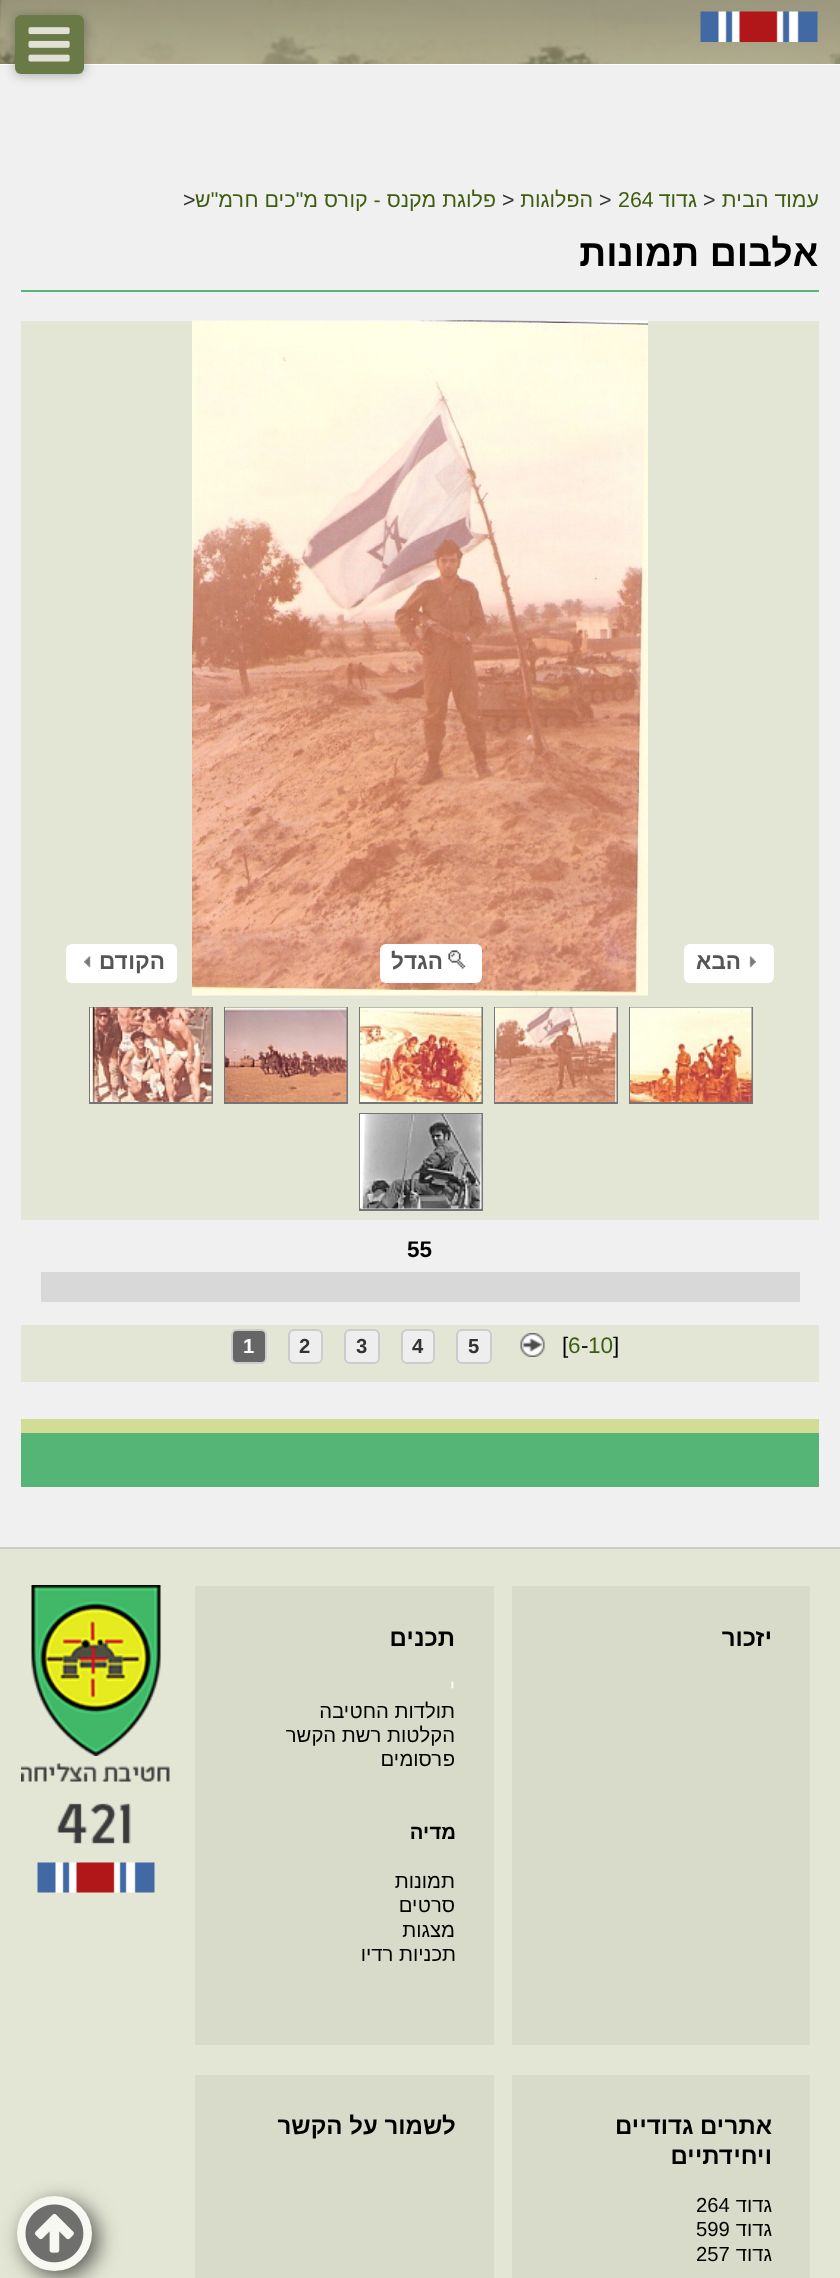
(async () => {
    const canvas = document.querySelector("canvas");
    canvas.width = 840;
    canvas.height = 2278;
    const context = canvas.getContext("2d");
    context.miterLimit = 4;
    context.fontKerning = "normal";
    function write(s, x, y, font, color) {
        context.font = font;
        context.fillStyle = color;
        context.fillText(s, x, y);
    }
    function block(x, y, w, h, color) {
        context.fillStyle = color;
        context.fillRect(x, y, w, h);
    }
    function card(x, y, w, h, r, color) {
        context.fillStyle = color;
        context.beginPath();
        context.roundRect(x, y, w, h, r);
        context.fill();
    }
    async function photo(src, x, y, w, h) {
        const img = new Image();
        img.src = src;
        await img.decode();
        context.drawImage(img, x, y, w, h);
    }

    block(0, 0, 840, 2278, "rgb(255, 255, 255)");
    await photo("media/1.png", 0, 0, 840, 64);
    await photo("media/2.png", 700, 11, 118, 31);
    block(0, 65, 840, 1482, "rgb(240, 240, 240)");
    context.fillStyle = "rgba(0, 0, 0, 0.3)";
    context.filter = "blur(6px)";
    context.beginPath();
    context.roundRect(15, 17, 69, 58, 6);
    context.fill();
    context.filter = "none";
    card(15, 15, 69, 59, 6, "rgb(106, 122, 70)");
    await photo("media/3.png", 28, 27, 42, 35);
    context.direction = "rtl";
    write("עמוד הבית", 819, 207, "21.4px Arimo", "rgb(62, 93, 17)");
    context.direction = "ltr";
    write(">", 703, 207, "21.4px Arimo", "rgb(51, 51, 51)");
    context.direction = "rtl";
    write("גדוד", 697, 207, "21.4px Arimo", "rgb(62, 93, 17)");
    context.direction = "ltr";
    write("264", 618, 207, "21.4px Arimo", "rgb(62, 93, 17)");
    write(">", 599, 207, "21.4px Arimo", "rgb(51, 51, 51)");
    context.direction = "rtl";
    write("הפלוגות", 593, 207, "21.4px Arimo", "rgb(62, 93, 17)");
    context.direction = "ltr";
    write(">", 502, 207, "21.4px Arimo", "rgb(51, 51, 51)");
    context.direction = "rtl";
    write("פלוגת מקנס - קורס מ\"כים חרמ\"ש", 496, 207, "21.4px Arimo", "rgb(62, 93, 17)");
    context.direction = "ltr";
    write(">", 183, 207, "21.4px Arimo", "rgb(51, 51, 51)");
    block(21, 290, 798, 2, "rgb(84, 181, 118)");
    context.direction = "rtl";
    write("אלבום תמונות", 819, 266, "bold 37.5px Arimo", "rgb(0, 0, 0)");
    block(21, 321, 798, 1061, "rgb(227, 229, 213)");
    await photo("media/4.png", 192, 320, 456, 676);
    card(684, 944, 90, 39, 6, "rgb(255, 255, 255)");
    await photo("media/5.png", 749, 956, 7, 12);
    write("הבא", 741, 969, "bold 22.5px Arimo", "rgb(85, 85, 85)");
    card(380, 944, 102, 39, 6, "rgb(255, 255, 255)");
    await photo("media/6.png", 448, 950, 18, 19);
    write("הגדל", 443, 969, "bold 22.5px Arimo", "rgb(85, 85, 85)");
    card(66, 944, 111, 39, 6, "rgb(255, 255, 255)");
    write("הקודם", 165, 969, "bold 22.5px Arimo", "rgb(85, 85, 85)");
    await photo("media/7.png", 84, 956, 7, 12);
    context.strokeStyle = "rgb(117, 117, 117)";
    context.lineWidth = 2;
    context.strokeRect(630, 1008, 122, 95);
    await photo("media/8.png", 630, 1007, 122, 95);
    context.strokeRect(495, 1008, 122, 95);
    await photo("media/9.png", 495, 1007, 122, 95);
    context.strokeRect(360, 1008, 122, 95);
    await photo("media/10.png", 360, 1007, 122, 95);
    context.strokeRect(225, 1008, 122, 95);
    await photo("media/11.png", 225, 1007, 122, 95);
    context.strokeRect(90, 1008, 122, 95);
    await photo("media/12.png", 90, 1007, 122, 95);
    context.strokeRect(360, 1114, 122, 96);
    await photo("media/13.png", 360, 1114, 122, 95);
    block(21, 1220, 798, 105, "rgb(240, 240, 240)");
    context.direction = "ltr";
    write("55", 407, 1257, "bold 22.5px Arimo", "rgb(0, 0, 0)");
    block(41, 1272, 759, 30, "rgb(216, 216, 216)");
    write("]", 613, 1353, "22.5px Arimo", "rgb(0, 0, 0)");
    write("10", 588, 1353, "22.5px Arimo", "rgb(62, 93, 17)");
    write("-", 581, 1353, "22.5px Arimo", "rgb(0, 0, 0)");
    write("6", 568, 1353, "22.5px Arimo", "rgb(62, 93, 17)");
    write("[", 562, 1353, "22.5px Arimo", "rgb(0, 0, 0)");
    await photo("media/14.png", 520, 1333, 25, 24);
    context.fillStyle = "rgb(238, 238, 238)";
    context.beginPath();
    context.roundRect(457, 1330, 34, 33, 5);
    context.fill();
    context.strokeStyle = "rgb(204, 204, 204)";
    context.stroke();
    write("5", 468, 1353, "bold 20.25px Arimo", "rgb(51, 51, 51)");
    context.fillStyle = "rgb(238, 238, 238)";
    context.beginPath();
    context.roundRect(402, 1330, 32, 33, 5);
    context.fill();
    context.stroke();
    write("4", 412, 1353, "bold 20.25px Arimo", "rgb(51, 51, 51)");
    context.fillStyle = "rgb(238, 238, 238)";
    context.beginPath();
    context.roundRect(345, 1330, 34, 33, 5);
    context.fill();
    context.stroke();
    write("3", 356, 1353, "bold 20.25px Arimo", "rgb(51, 51, 51)");
    context.fillStyle = "rgb(238, 238, 238)";
    context.beginPath();
    context.roundRect(289, 1330, 33, 33, 5);
    context.fill();
    context.stroke();
    write("2", 299, 1353, "bold 20.25px Arimo", "rgb(51, 51, 51)");
    context.fillStyle = "rgb(102, 102, 102)";
    context.beginPath();
    context.roundRect(232, 1330, 34, 33, 5);
    context.fill();
    context.stroke();
    write("1", 243, 1353, "bold 20.25px Arimo", "rgb(255, 255, 255)");
    block(21, 1433, 798, 54, "rgb(84, 181, 118)");
    block(21, 1419, 798, 14, "rgb(210, 220, 148)");
    block(0, 1549, 840, 729, "rgb(228, 230, 213)");
    block(0, 1547, 840, 2, "rgb(204, 206, 189)");
    block(512, 1586, 298, 459, "rgb(217, 219, 202)");
    context.direction = "rtl";
    write("יזכור", 772, 1646, "bold 24px Arimo", "rgb(0, 0, 0)");
    block(195, 1586, 299, 459, "rgb(217, 219, 202)");
    write("תכנים", 455, 1646, "bold 24px Arimo", "rgb(0, 0, 0)");
    write("י", 455, 1694, "20.25px Arimo", "rgb(255, 255, 255)");
    write("תולדות החטיבה", 455, 1718, "20.25px Arimo", "rgb(0, 0, 0)");
    write("הקלטות רשת הקשר", 455, 1742, "20.25px Arimo", "rgb(0, 0, 0)");
    write("פרסומים", 455, 1766, "20.25px Arimo", "rgb(0, 0, 0)");
    write("מדיה", 456, 1839, "bold 20.25px Arimo", "rgb(0, 0, 0)");
    write("תמונות", 455, 1888, "20.25px Arimo", "rgb(0, 0, 0)");
    write("סרטים", 455, 1912, "20.25px Arimo", "rgb(0, 0, 0)");
    write("מצגות", 455, 1937, "20.25px Arimo", "rgb(0, 0, 0)");
    write("תכניות רדיו", 456, 1961, "20.25px Arimo", "rgb(0, 0, 0)");
    block(512, 2075, 298, 203, "rgb(217, 219, 202)");
    write("אתרים גדודיים", 772, 2134, "bold 24px Arimo", "rgb(0, 0, 0)");
    write("ויחידתיים", 772, 2164, "bold 24px Arimo", "rgb(0, 0, 0)");
    write("גדוד", 772, 2212, "20.25px Arimo", "rgb(0, 0, 0)");
    context.direction = "ltr";
    write("264", 696, 2212, "20.25px Arimo", "rgb(0, 0, 0)");
    context.direction = "rtl";
    write("גדוד", 772, 2236, "20.25px Arimo", "rgb(0, 0, 0)");
    context.direction = "ltr";
    write("599", 696, 2236, "20.25px Arimo", "rgb(0, 0, 0)");
    context.direction = "rtl";
    write("גדוד", 772, 2261, "20.25px Arimo", "rgb(0, 0, 0)");
    context.direction = "ltr";
    write("257", 696, 2261, "20.25px Arimo", "rgb(0, 0, 0)");
    block(195, 2075, 299, 203, "rgb(217, 219, 202)");
    context.direction = "rtl";
    write("לשמור על הקשר", 456, 2134, "bold 24px Arimo", "rgb(0, 0, 0)");
    await photo("media/15.png", 31, 1585, 130, 171);
    await photo("media/16.png", 21, 1763, 149, 130);
    context.fillStyle = "rgba(68, 69, 64, 0.9)";
    context.filter = "blur(10.5px)";
    context.beginPath();
    context.roundRect(23, 2202, 75, 75, 37.5);
    context.fill();
    context.filter = "none";
    context.fillStyle = "rgb(247, 248, 242)";
    context.beginPath();
    context.arc(54.5, 2233.5, 37.5, 0, Math.PI * 2);
    context.fill();
    await photo("media/17.png", 25, 2204, 59, 59);
})();
